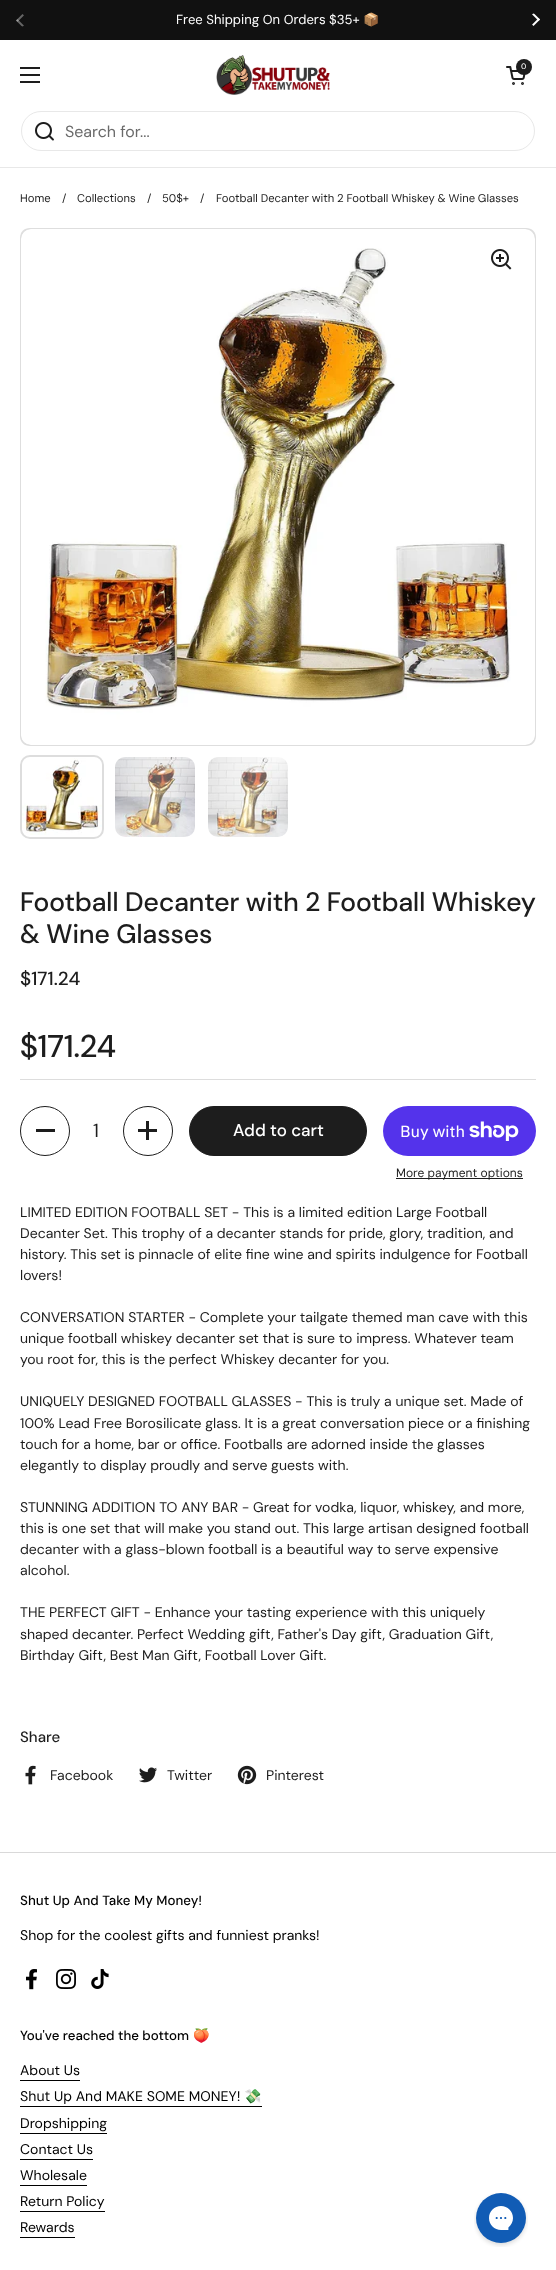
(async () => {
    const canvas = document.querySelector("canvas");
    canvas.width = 556;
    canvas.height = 2270;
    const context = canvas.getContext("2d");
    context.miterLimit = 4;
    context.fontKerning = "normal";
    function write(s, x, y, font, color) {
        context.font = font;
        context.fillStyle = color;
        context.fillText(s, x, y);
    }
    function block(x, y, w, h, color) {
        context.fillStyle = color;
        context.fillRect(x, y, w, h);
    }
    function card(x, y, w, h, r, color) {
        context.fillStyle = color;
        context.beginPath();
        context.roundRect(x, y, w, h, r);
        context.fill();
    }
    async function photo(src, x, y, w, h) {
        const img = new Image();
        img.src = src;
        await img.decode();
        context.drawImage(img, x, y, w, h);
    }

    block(0, 0, 556, 2270, "rgb(255, 255, 255)");
    block(0, 0, 556, 40, "rgb(17, 17, 17)");
    await photo("media/1.png", 16, 14, 8, 13);
    write("Free Shipping On Orders $35+", 176, 24, "13.1px 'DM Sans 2'", "rgb(255, 255, 255)");
    write("📦", 363, 24, "13.1px 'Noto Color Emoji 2'", "rgb(255, 255, 255)");
    await photo("media/2.png", 532, 13, 8, 13);
    block(20, 67, 20, 2, "rgb(29, 29, 29)");
    block(20, 74, 20, 2, "rgb(29, 29, 29)");
    block(20, 81, 20, 2, "rgb(29, 29, 29)");
    await photo("media/3.png", 216, 55, 114, 40);
    await photo("media/4.png", 506, 66, 20, 19);
    context.beginPath();
    context.arc(524, 67, 8, 0, Math.PI * 2);
    context.fill();
    write("0", 521, 69, "500 8px DM Sans", "rgb(255, 255, 255)");
    block(0, 167, 556, 1, "rgb(232, 232, 232)");
    context.beginPath();
    context.roundRect(21.5, 111.5, 513, 39, 19.5);
    context.strokeStyle = "rgb(232, 232, 232)";
    context.stroke();
    await photo("media/5.png", 35, 122, 19, 19);
    write("Search for...", 65, 137, "16px 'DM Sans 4'", "rgb(106, 106, 106)");
    write("Home", 20, 202, "11.25px 'DM Sans 2'", "rgb(29, 29, 29)");
    write("/", 62, 202, "11.25px 'DM Sans 2'", "rgb(29, 29, 29)");
    write("Collections", 77, 202, "11.25px 'DM Sans 2'", "rgb(29, 29, 29)");
    write("/", 147, 202, "11.25px 'DM Sans 2'", "rgb(29, 29, 29)");
    write("50$+", 162, 202, "11.25px 'DM Sans 2'", "rgb(29, 29, 29)");
    write("/", 200, 202, "11.25px 'DM Sans 2'", "rgb(29, 29, 29)");
    context.wordSpacing = "-0.25px";
    write("Football Decanter with 2 Football Whiskey & Wine Glasses", 216, 202, "11.25px 'DM Sans 2'", "rgb(29, 29, 29)");
    context.fillStyle = "rgb(222, 222, 222)";
    context.beginPath();
    context.moveTo(30, 228);
    context.lineTo(526, 228);
    context.bezierCurveTo(532, 228, 536, 232, 536, 238);
    context.lineTo(536, 736);
    context.bezierCurveTo(536, 742, 532, 746, 526, 746);
    context.lineTo(30, 746);
    context.bezierCurveTo(24, 746, 20, 742, 20, 736);
    context.lineTo(20, 238);
    context.bezierCurveTo(20, 232, 24, 228, 30, 228);
    context.closePath();
    context.fill();
    await photo("media/6.png", 21, 229, 514, 516);
    await photo("media/7.png", 491, 249, 21, 21);
    context.beginPath();
    context.roundRect(21, 756, 82, 82, 9);
    context.strokeStyle = "rgb(221, 221, 221)";
    context.lineWidth = 2;
    context.stroke();
    await photo("media/8.png", 22, 758, 80, 77);
    await photo("media/9.png", 115, 757, 80, 80);
    await photo("media/10.png", 208, 757, 80, 80);
    context.wordSpacing = "0px";
    write("Football Decanter with 2 Football Whiskey", 20, 911, "500 26.7px 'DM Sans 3'", "rgb(29, 29, 29)");
    write("& Wine Glasses", 20, 943, "500 26.7px 'DM Sans 3'", "rgb(29, 29, 29)");
    write("$171.24", 20, 985, "500 19px 'DM Sans 4'", "rgb(29, 29, 29)");
    write("$171.24", 20, 1057, "500 31.5px 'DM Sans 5'", "rgb(29, 29, 29)");
    block(20, 1079, 516, 1, "rgb(221, 221, 221)");
    context.beginPath();
    context.arc(45, 1131, 24.5, 0, Math.PI * 2);
    context.strokeStyle = "rgb(29, 29, 29)";
    context.lineWidth = 1;
    context.stroke();
    block(36, 1129, 19, 3, "rgb(29, 29, 29)");
    write("1", 93, 1137, "19px 'DM Sans 3'", "rgb(29, 29, 29)");
    context.beginPath();
    context.arc(148, 1131, 24.5, 0, Math.PI * 2);
    context.stroke();
    block(146, 1121, 3, 19, "rgb(29, 29, 29)");
    block(138, 1129, 19, 3, "rgb(29, 29, 29)");
    context.beginPath();
    context.roundRect(189.5, 1106.5, 177, 49, 24.5);
    context.fill();
    context.stroke();
    write("Add to cart", 233, 1136, "500 17px 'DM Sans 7'", "rgb(255, 255, 255)");
    card(383, 1106, 153, 50, 25, "rgb(84, 51, 235)");
    write("Buy with", 400, 1137, "16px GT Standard", "rgb(255, 255, 255)");
    await photo("media/11.png", 469, 1121, 50, 20);
    block(396, 1178, 127, 1, "rgb(29, 29, 29)");
    write("More payment options", 396, 1177, "12px 'DM Sans 2'", "rgb(29, 29, 29)");
    write("LIMITED EDITION FOOTBALL SET - This is a limited edition Large Football", 20, 1217, "14.05px DM Sans", "rgb(29, 29, 29)");
    write("Decanter Set. This trophy of a decanter stands for pride, glory, tradition, and", 20, 1238, "14.05px DM Sans", "rgb(29, 29, 29)");
    write("history. This set is pinnacle of elite fine wine and spirits indulgence for Football", 20, 1259, "14.05px DM Sans", "rgb(29, 29, 29)");
    write("lovers!", 20, 1280, "14.05px DM Sans", "rgb(29, 29, 29)");
    write("CONVERSATION STARTER - Complete your tailgate themed man cave with this", 20, 1322, "14.05px DM Sans", "rgb(29, 29, 29)");
    write("unique football whiskey decanter set that is sure to impress. Whatever team", 20, 1343, "14.05px DM Sans", "rgb(29, 29, 29)");
    write("you root for, this is the perfect Whiskey decanter for you.", 20, 1364, "14.05px DM Sans", "rgb(29, 29, 29)");
    write("UNIQUELY DESIGNED FOOTBALL GLASSES - This is truly a unique set. Made of", 20, 1406, "14.05px DM Sans", "rgb(29, 29, 29)");
    write("100% Lead Free Borosilicate glass. It is a great conversation piece or a finishing", 20, 1428, "14.05px DM Sans", "rgb(29, 29, 29)");
    write("touch for a home, bar or office. Footballs are adorned inside the glasses", 20, 1449, "14.05px DM Sans", "rgb(29, 29, 29)");
    write("elegantly to display proudly and serve guests with.", 20, 1470, "14.05px DM Sans", "rgb(29, 29, 29)");
    write("STUNNING ADDITION TO ANY BAR - Great for vodka, liquor, whiskey, and more,", 20, 1512, "14.05px DM Sans", "rgb(29, 29, 29)");
    write("this is one set that will make you stand out. This large artisan designed football", 20, 1533, "14.05px DM Sans", "rgb(29, 29, 29)");
    write("decanter with a glass-blown football is a beautiful way to serve expensive", 20, 1554, "14.05px DM Sans", "rgb(29, 29, 29)");
    write("alcohol.", 20, 1575, "14.05px DM Sans", "rgb(29, 29, 29)");
    write("THE PERFECT GIFT - Enhance your tasting experience with this uniquely", 20, 1617, "14.05px DM Sans", "rgb(29, 29, 29)");
    write("shaped decanter. Perfect Wedding gift, Father's Day gift, Graduation Gift,", 20, 1639, "14.05px DM Sans", "rgb(29, 29, 29)");
    write("Birthday Gift, Best Man Gift, Football Lover Gift.", 20, 1660, "14.05px DM Sans", "rgb(29, 29, 29)");
    write("Share", 20, 1742, "500 15px 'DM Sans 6'", "rgb(29, 29, 29)");
    await photo("media/12.png", 25, 1765, 11, 20);
    write("Facebook", 50, 1780, "14.05px DM Sans", "rgb(29, 29, 29)");
    await photo("media/13.png", 139, 1767, 18, 16);
    write("Twitter", 167, 1780, "14.05px DM Sans", "rgb(29, 29, 29)");
    await photo("media/14.png", 237, 1765, 20, 20);
    write("Pinterest", 266, 1780, "14.05px DM Sans", "rgb(29, 29, 29)");
    block(0, 1852, 556, 1, "rgb(217, 217, 217)");
    write("Shut Up And Take My Money!", 20, 1905, "500 13.3px DM Sans", "rgb(0, 0, 0)");
    write("Shop for the coolest gifts and funniest pranks!", 20, 1940, "14.05px DM Sans", "rgb(0, 0, 0)");
    await photo("media/15.png", 26, 1969, 11, 21);
    await photo("media/16.png", 56, 1969, 20, 20);
    await photo("media/17.png", 91, 1969, 18, 20);
    write("You've reached the bottom", 20, 2040, "500 13.3px 'DM Sans 2'", "rgb(0, 0, 0)");
    write("🍑", 193, 2040, "13.3px Noto Color Emoji", "rgb(0, 0, 0)");
    write("About Us", 20, 2075, "14.05px DM Sans", "rgb(0, 0, 0)");
    block(20, 2080, 60, 1, "rgb(0, 0, 0)");
    write("Shut Up And MAKE SOME MONEY!", 20, 2101, "14.05px 'DM Sans 2'", "rgb(0, 0, 0)");
    block(20, 2106, 242, 1, "rgb(0, 0, 0)");
    write("💸", 244, 2101, "14.05px 'Noto Color Emoji 2'", "rgb(0, 0, 0)");
    write("Dropshipping", 20, 2128, "14.05px DM Sans", "rgb(0, 0, 0)");
    block(20, 2133, 87, 1, "rgb(0, 0, 0)");
    write("Contact Us", 20, 2154, "14.05px DM Sans", "rgb(0, 0, 0)");
    block(20, 2159, 73, 1, "rgb(0, 0, 0)");
    write("Wholesale", 20, 2180, "14.05px DM Sans", "rgb(0, 0, 0)");
    block(20, 2185, 67, 1, "rgb(0, 0, 0)");
    write("Return Policy", 20, 2206, "14.05px DM Sans", "rgb(0, 0, 0)");
    block(20, 2211, 85, 1, "rgb(0, 0, 0)");
    write("Rewards", 20, 2232, "14.05px DM Sans", "rgb(0, 0, 0)");
    block(20, 2237, 55, 1, "rgb(0, 0, 0)");
    await photo("media/18.png", 474, 2193, 54, 54);
})();
